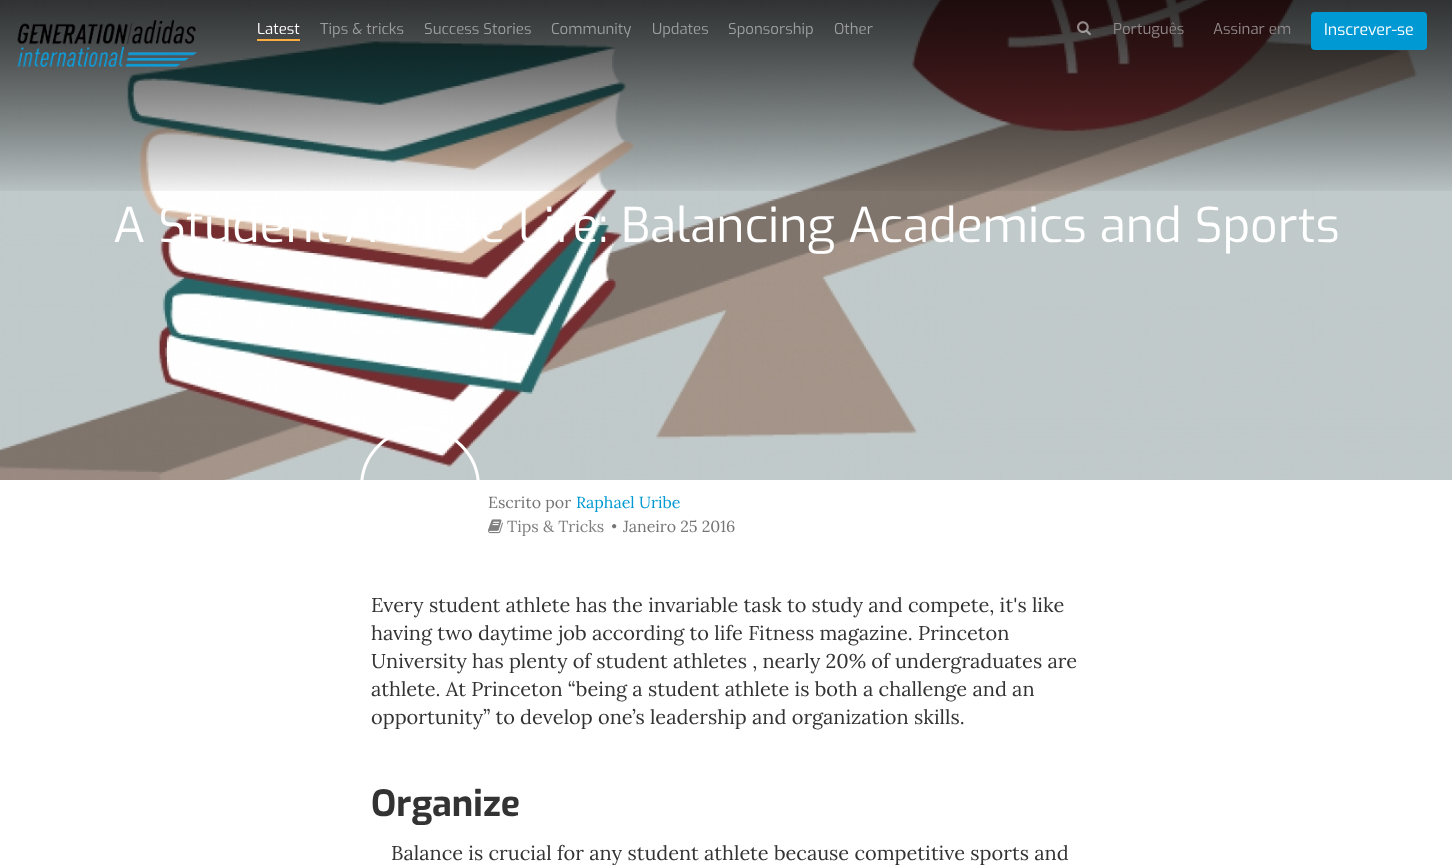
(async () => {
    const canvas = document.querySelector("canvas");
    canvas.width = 1452;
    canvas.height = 865;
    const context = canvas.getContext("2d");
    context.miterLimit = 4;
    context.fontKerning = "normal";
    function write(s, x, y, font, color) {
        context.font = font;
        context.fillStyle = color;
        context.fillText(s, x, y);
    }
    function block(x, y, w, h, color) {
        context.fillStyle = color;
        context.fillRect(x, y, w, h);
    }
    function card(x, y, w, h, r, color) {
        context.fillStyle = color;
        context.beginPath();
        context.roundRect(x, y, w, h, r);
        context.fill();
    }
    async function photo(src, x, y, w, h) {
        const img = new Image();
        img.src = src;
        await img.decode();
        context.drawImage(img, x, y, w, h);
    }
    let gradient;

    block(0, 0, 1452, 865, "rgb(255, 255, 255)");
    await photo("media/1.png", 0, 0, 1452, 480);
    gradient = context.createLinearGradient(726, 0, 726, 200);
    gradient.addColorStop(0, "rgba(2, 2, 2, 0.5)");
    gradient.addColorStop(1, "rgba(2, 2, 2, 0)");
    context.fillStyle = gradient;
    context.fillRect(0, 0, 1452, 191);
    gradient = context.createLinearGradient(726, 0, 726, 200);
    gradient.addColorStop(0, "rgba(0, 0, 0, 0.5)");
    gradient.addColorStop(1, "rgba(0, 0, 0, 0)");
    context.fillStyle = gradient;
    context.fillRect(0, 0, 1452, 191);
    await photo("media/2.png", 17, 20, 181, 47);
    write("Latest", 257, 34, "15px Exo", "rgb(255, 255, 255)");
    block(257, 39, 43, 2, "rgb(251, 173, 66)");
    write("Tips & tricks", 320, 34, "15px Exo", "rgb(156, 158, 158)");
    write("Success Stories", 424, 34, "15px Exo", "rgb(156, 158, 158)");
    write("Community", 551, 34, "15px Exo", "rgb(156, 158, 158)");
    write("Updates", 652, 34, "15px Exo", "rgb(156, 158, 158)");
    write("Sponsorship", 728, 34, "15px Exo", "rgb(156, 158, 158)");
    write("Other", 834, 34, "15px Exo", "rgb(156, 158, 158)");
    await photo("media/3.png", 1077, 21, 14, 15);
    write("Português", 1113, 34, "15px Exo", "rgb(146, 137, 138)");
    write("Assinar em", 1213, 34, "15px Exo", "rgb(146, 137, 138)");
    card(1311, 12, 116, 38, 4, "rgb(0, 153, 211)");
    write("Inscrever-se", 1324, 35, "16px Exo", "rgb(255, 255, 255)");
    write("A Student Athlete Life: Balancing Academics and Sports", 113, 242, "48px Exo", "rgb(255, 255, 255)");
    context.beginPath();
    context.arc(420, 487, 58.5, 0, Math.PI * 2);
    context.strokeStyle = "rgb(255, 255, 255)";
    context.lineWidth = 3;
    context.stroke();
    write("Escrito por", 488, 508, "16px Lora", "rgb(117, 117, 117)");
    write("Raphael Uribe", 576, 508, "16px Lora", "rgb(0, 153, 211)");
    await photo("media/4.png", 488, 519, 15, 15);
    write("Tips & Tricks", 507, 532, "16px Lora", "rgb(128, 128, 128)");
    await photo("media/5.png", 612, 524, 5, 5);
    write("Janeiro 25 2016", 623, 532, "16px Lora", "rgb(117, 117, 117)");
    write("Every student athlete has the invariable task to study and compete, it's like", 371, 612, "20px Lora", "rgb(51, 51, 51)");
    write("having two daytime job according to life Fitness magazine. Princeton", 371, 640, "20px Lora", "rgb(51, 51, 51)");
    write("University has plenty of student athletes , nearly 20% of undergraduates are", 371, 668, "20px Lora", "rgb(51, 51, 51)");
    write("athlete. At Princeton “being a student athlete is both a challenge and an", 371, 696, "20px Lora", "rgb(51, 51, 51)");
    write("opportunity” to develop one’s leadership and organization skills.", 371, 724, "20px Lora", "rgb(51, 51, 51)");
    write("Organize", 371, 816, "bold 36px Exo", "rgb(51, 51, 51)");
    write("Balance is crucial for any student athlete because competitive sports and", 391, 860, "20px Lora", "rgb(51, 51, 51)");
})();
